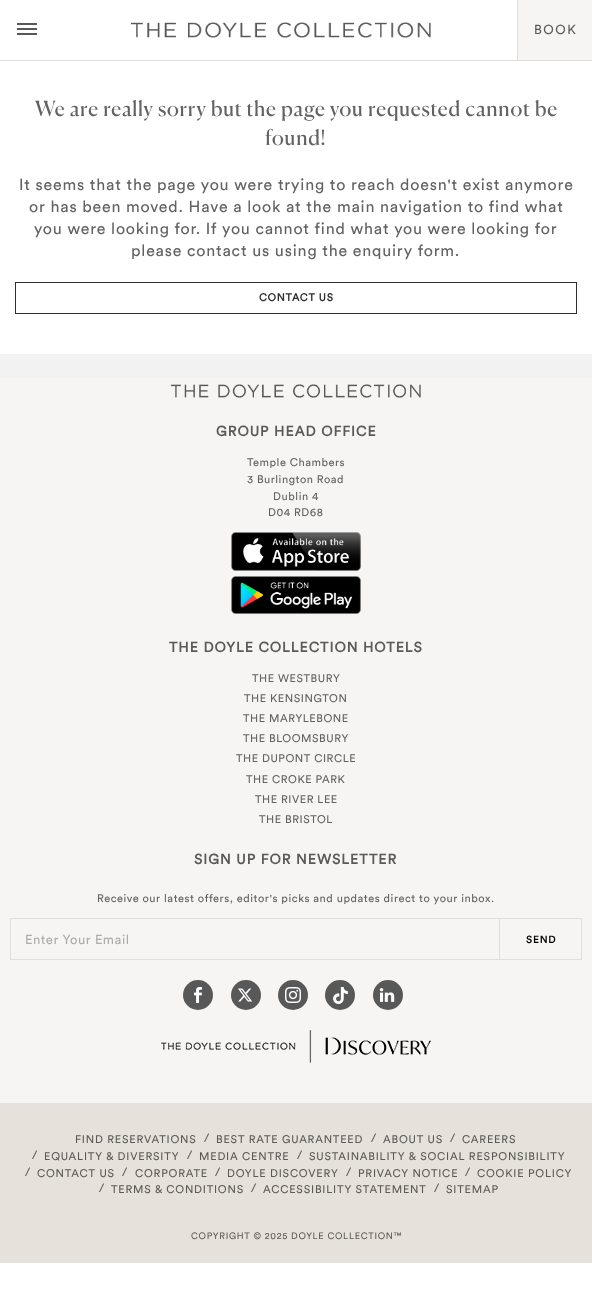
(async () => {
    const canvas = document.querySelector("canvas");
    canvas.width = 592;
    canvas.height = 1293;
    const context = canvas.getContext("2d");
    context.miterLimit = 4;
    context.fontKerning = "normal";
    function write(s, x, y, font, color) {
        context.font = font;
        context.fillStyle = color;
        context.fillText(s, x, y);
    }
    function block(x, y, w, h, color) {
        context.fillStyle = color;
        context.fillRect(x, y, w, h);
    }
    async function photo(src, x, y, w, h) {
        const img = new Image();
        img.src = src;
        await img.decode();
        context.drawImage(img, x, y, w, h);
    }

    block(0, 0, 592, 1293, "rgb(255, 255, 255)");
    block(0, 60, 592, 1, "rgb(222, 222, 222)");
    block(17, 23, 20, 2, "rgb(88, 88, 88)");
    block(17, 28, 20, 2, "rgb(88, 88, 88)");
    block(17, 33, 20, 2, "rgb(88, 88, 88)");
    await photo("media/1.png", 131, 22, 300, 16);
    block(518, 0, 74, 60, "rgb(246, 245, 243)");
    block(517, 0, 1, 60, "rgb(222, 222, 222)");
    context.letterSpacing = "1.5px";
    write("BOOK", 534, 34, "13px Circular", "rgb(92, 90, 88)");
    context.letterSpacing = "0.8px";
    write("We are really sorry but the page you requested cannot be", 35, 116, "20.8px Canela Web", "rgb(98, 98, 98)");
    write("found!", 265, 145, "20.8px Canela Web", "rgb(98, 98, 98)");
    write("It seems that the page you were trying to reach doesn't exist anymore", 19, 190, "16px Circular", "rgb(98, 98, 98)");
    write("or has been moved. Have a look at the main navigation to find what", 29, 212, "16px Circular", "rgb(98, 98, 98)");
    write("you were looking for. If you cannot find what you were looking for", 34, 234, "16px Circular", "rgb(98, 98, 98)");
    write("please contact us using the enquiry form.", 131, 256, "16px Circular", "rgb(98, 98, 98)");
    context.strokeStyle = "rgb(46, 46, 45)";
    context.strokeRect(15.5, 282.5, 561, 31);
    write("CONTACT US", 259, 301, "bold 10.5px Circular", "rgb(46, 46, 45)");
    block(0, 354, 592, 24, "rgb(242, 242, 242)");
    block(0, 378, 592, 725, "rgb(246, 245, 243)");
    await photo("media/2.png", 171, 384, 250, 14);
    context.letterSpacing = "1.05px";
    write("GROUP HEAD OFFICE", 216, 436, "bold 14px Circular", "rgb(92, 90, 88)");
    context.letterSpacing = "0.55px";
    write("Temple Chambers", 247, 466, "11px Circular", "rgb(98, 98, 98)");
    write("3 Burlington Road", 247, 483, "11px Circular", "rgb(98, 98, 98)");
    write("Dublin 4", 273, 500, "11px Circular", "rgb(98, 98, 98)");
    write("D04 RD68", 268, 516, "11px Circular", "rgb(98, 98, 98)");
    await photo("media/3.png", 231, 532, 130, 39);
    await photo("media/4.png", 231, 576, 130, 38);
    context.letterSpacing = "1.05px";
    write("THE DOYLE COLLECTION HOTELS", 169, 652, "bold 14px Circular", "rgb(92, 90, 88)");
    context.letterSpacing = "0.55px";
    write("THE WESTBURY", 252, 682, "11px Circular", "rgb(98, 98, 98)");
    write("THE KENSINGTON", 244, 702, "11px Circular", "rgb(98, 98, 98)");
    write("THE MARYLEBONE", 243, 722, "11px Circular", "rgb(98, 98, 98)");
    write("THE BLOOMSBURY", 243, 742, "11px Circular", "rgb(98, 98, 98)");
    write("THE DUPONT CIRCLE", 236, 762, "11px Circular", "rgb(98, 98, 98)");
    write("THE CROKE PARK", 246, 783, "11px Circular", "rgb(98, 98, 98)");
    write("THE RIVER LEE", 255, 803, "11px Circular", "rgb(98, 98, 98)");
    write("THE BRISTOL", 259, 823, "11px Circular", "rgb(98, 98, 98)");
    context.letterSpacing = "1.05px";
    write("SIGN UP FOR NEWSLETTER", 194, 864, "bold 14px Circular", "rgb(92, 90, 88)");
    context.letterSpacing = "0.55px";
    write("Receive our latest offers, editor's picks and updates direct to your inbox.", 97, 902, "11px Circular", "rgb(98, 98, 98)");
    context.strokeStyle = "rgb(222, 222, 222)";
    context.strokeRect(10.5, 918.5, 489, 41);
    write("Enter Your Email", 25, 944, "13px Circular", "rgb(172, 172, 171)");
    block(500, 918, 82, 1, "rgb(222, 222, 222)");
    block(581, 918, 1, 42, "rgb(222, 222, 222)");
    block(500, 959, 82, 1, "rgb(222, 222, 222)");
    context.letterSpacing = "1px";
    write("SEND", 526, 943, "bold 10px Circular", "rgb(0, 0, 0)");
    context.fillStyle = "rgb(88, 88, 88)";
    context.beginPath();
    context.arc(198, 995, 15, 0, Math.PI * 2);
    context.fill();
    await photo("media/5.png", 194, 987, 8, 16);
    context.beginPath();
    context.arc(246, 995, 15, 0, Math.PI * 2);
    context.fill();
    await photo("media/6.png", 238, 988, 15, 14);
    context.beginPath();
    context.arc(293, 995, 15, 0, Math.PI * 2);
    context.fill();
    await photo("media/7.png", 285, 987, 16, 16);
    context.beginPath();
    context.arc(340, 995, 15, 0, Math.PI * 2);
    context.fill();
    await photo("media/8.png", 333, 987, 15, 17);
    context.beginPath();
    context.arc(388, 995, 15, 0, Math.PI * 2);
    context.fill();
    await photo("media/9.png", 379, 988, 16, 14);
    await photo("media/10.png", 161, 1030, 270, 33);
    block(0, 1103, 592, 160, "rgb(230, 226, 219)");
    context.letterSpacing = "0.8px";
    write("FIND RESERVATIONS", 75, 1143, "11px Circular", "rgb(92, 90, 88)");
    write("/", 204, 1142, "12px Circular", "rgb(92, 90, 88)");
    write("BEST RATE GUARANTEED", 216, 1143, "11px Circular", "rgb(92, 90, 88)");
    write("/", 371, 1142, "12px Circular", "rgb(92, 90, 88)");
    write("ABOUT US", 383, 1143, "11px Circular", "rgb(92, 90, 88)");
    write("/", 450, 1142, "12px Circular", "rgb(92, 90, 88)");
    write("CAREERS", 462, 1143, "11px Circular", "rgb(92, 90, 88)");
    write("/", 32, 1159, "12px Circular", "rgb(92, 90, 88)");
    write("EQUALITY & DIVERSITY", 44, 1160, "11px Circular", "rgb(92, 90, 88)");
    write("/", 187, 1159, "12px Circular", "rgb(92, 90, 88)");
    write("MEDIA CENTRE", 199, 1160, "11px Circular", "rgb(92, 90, 88)");
    write("/", 297, 1159, "12px Circular", "rgb(92, 90, 88)");
    write("SUSTAINABILITY & SOCIAL RESPONSIBILITY", 309, 1160, "11px Circular", "rgb(92, 90, 88)");
    write("/", 25, 1176, "12px Circular", "rgb(92, 90, 88)");
    write("CONTACT US", 37, 1177, "11px Circular", "rgb(92, 90, 88)");
    write("/", 122, 1176, "12px Circular", "rgb(92, 90, 88)");
    write("CORPORATE", 135, 1177, "11px Circular", "rgb(92, 90, 88)");
    write("/", 215, 1176, "12px Circular", "rgb(92, 90, 88)");
    write("DOYLE DISCOVERY", 227, 1177, "11px Circular", "rgb(92, 90, 88)");
    write("/", 346, 1176, "12px Circular", "rgb(92, 90, 88)");
    write("PRIVACY NOTICE", 358, 1177, "11px Circular", "rgb(92, 90, 88)");
    write("/", 465, 1176, "12px Circular", "rgb(92, 90, 88)");
    write("COOKIE POLICY", 477, 1177, "11px Circular", "rgb(92, 90, 88)");
    write("/", 99, 1192, "12px Circular", "rgb(92, 90, 88)");
    write("TERMS & CONDITIONS", 111, 1193, "11px Circular", "rgb(92, 90, 88)");
    write("/", 251, 1192, "12px Circular", "rgb(92, 90, 88)");
    write("ACCESSIBILITY STATEMENT", 263, 1193, "11px Circular", "rgb(92, 90, 88)");
    write("/", 434, 1192, "12px Circular", "rgb(92, 90, 88)");
    write("SITEMAP", 446, 1193, "11px Circular", "rgb(92, 90, 88)");
    context.letterSpacing = "0.7px";
    write("COPYRIGHT © 2025 DOYLE COLLECTION™", 191, 1239, "9.25px Circular", "rgb(92, 90, 88)");
})();
